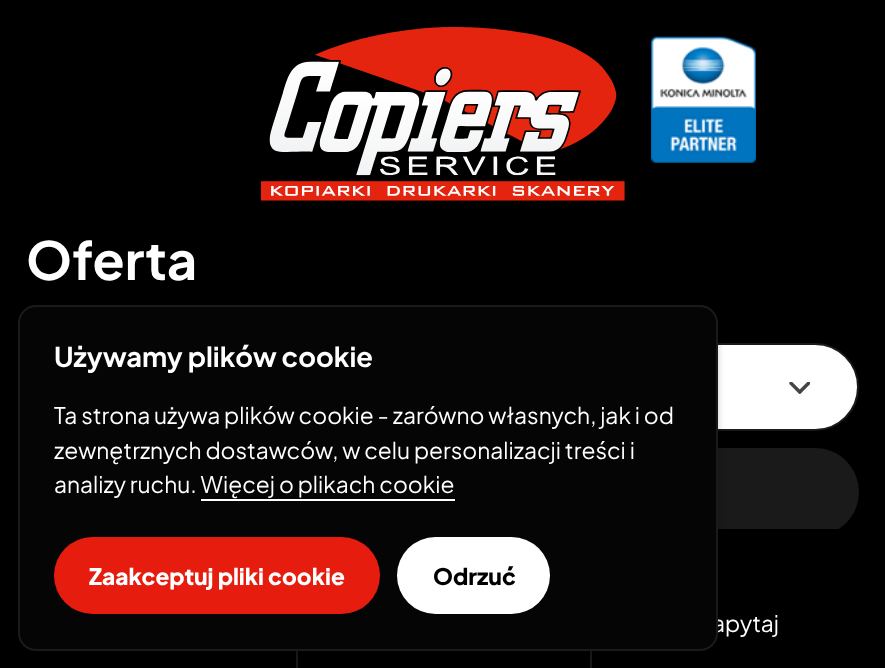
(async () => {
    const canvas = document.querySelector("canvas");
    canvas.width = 885;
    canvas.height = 668;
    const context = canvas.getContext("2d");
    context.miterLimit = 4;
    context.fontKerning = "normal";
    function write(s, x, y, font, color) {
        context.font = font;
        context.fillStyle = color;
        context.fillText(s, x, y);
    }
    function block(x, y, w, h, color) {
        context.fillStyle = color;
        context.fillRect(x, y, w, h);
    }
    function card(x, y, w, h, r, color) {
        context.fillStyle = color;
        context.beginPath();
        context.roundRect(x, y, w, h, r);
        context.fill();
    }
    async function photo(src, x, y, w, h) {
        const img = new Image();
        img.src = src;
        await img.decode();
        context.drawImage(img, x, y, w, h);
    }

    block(0, 0, 885, 668, "rgb(0, 0, 0)");
    await photo("media/1.png", 261, 27, 364, 174);
    await photo("media/2.png", 651, 36, 105, 127);
    write("Oferta", 26, 280, "bold 52.5px Plus Jakarta Sans", "rgb(255, 255, 255)");
    context.beginPath();
    context.roundRect(453, 344, 405, 86, 43);
    context.fill();
    context.strokeStyle = "rgb(26, 26, 26)";
    context.lineWidth = 2;
    context.stroke();
    await photo("media/3.png", 789, 382, 21, 12);
    card(26, 448, 833, 88, 44, "rgb(26, 26, 26)");
    block(46, 529, 793, 7, "rgb(0, 0, 0)");
    block(590, 651, 2, 17, "rgb(26, 26, 26)");
    write("apytaj", 712, 632, "22.75px Plus Jakarta Sans", "rgb(255, 255, 255)");
    block(296, 651, 2, 17, "rgb(26, 26, 26)");
    context.fillStyle = "rgba(0, 0, 0, 0.2)";
    context.filter = "blur(3.5px)";
    context.beginPath();
    context.roundRect(18, 306, 700, 347, 18);
    context.fill();
    context.filter = "none";
    context.fillStyle = "rgb(5, 5, 5)";
    context.beginPath();
    context.roundRect(19, 306, 698, 344, 17);
    context.fill();
    context.stroke();
    write("Używamy plików cookie", 54, 367, "bold 27.25px Plus Jakarta Sans", "rgb(255, 255, 255)");
    write("Ta strona używa plików cookie - zarówno własnych, jak i od", 54, 424, "22.75px Plus Jakarta Sans", "rgb(255, 255, 255)");
    write("zewnętrznych dostawców, w celu personalizacji treści i", 54, 459, "22.75px Plus Jakarta Sans", "rgb(255, 255, 255)");
    write("analizy ruchu. Więcej o plikach cookie", 54, 493, "22.75px Plus Jakarta Sans", "rgb(255, 255, 255)");
    block(201, 499, 254, 2, "rgb(255, 255, 255)");
    card(54, 537, 326, 77, 38.5, "rgb(229, 28, 14)");
    write("Zaakceptuj pliki cookie", 89, 585, "800 22.75px Plus Jakarta Sans", "rgb(255, 255, 255)");
    card(397, 537, 153, 77, 38.5, "rgb(255, 255, 255)");
    write("Odrzuć", 433, 585, "800 22.75px Plus Jakarta Sans", "rgb(0, 0, 0)");
})();
